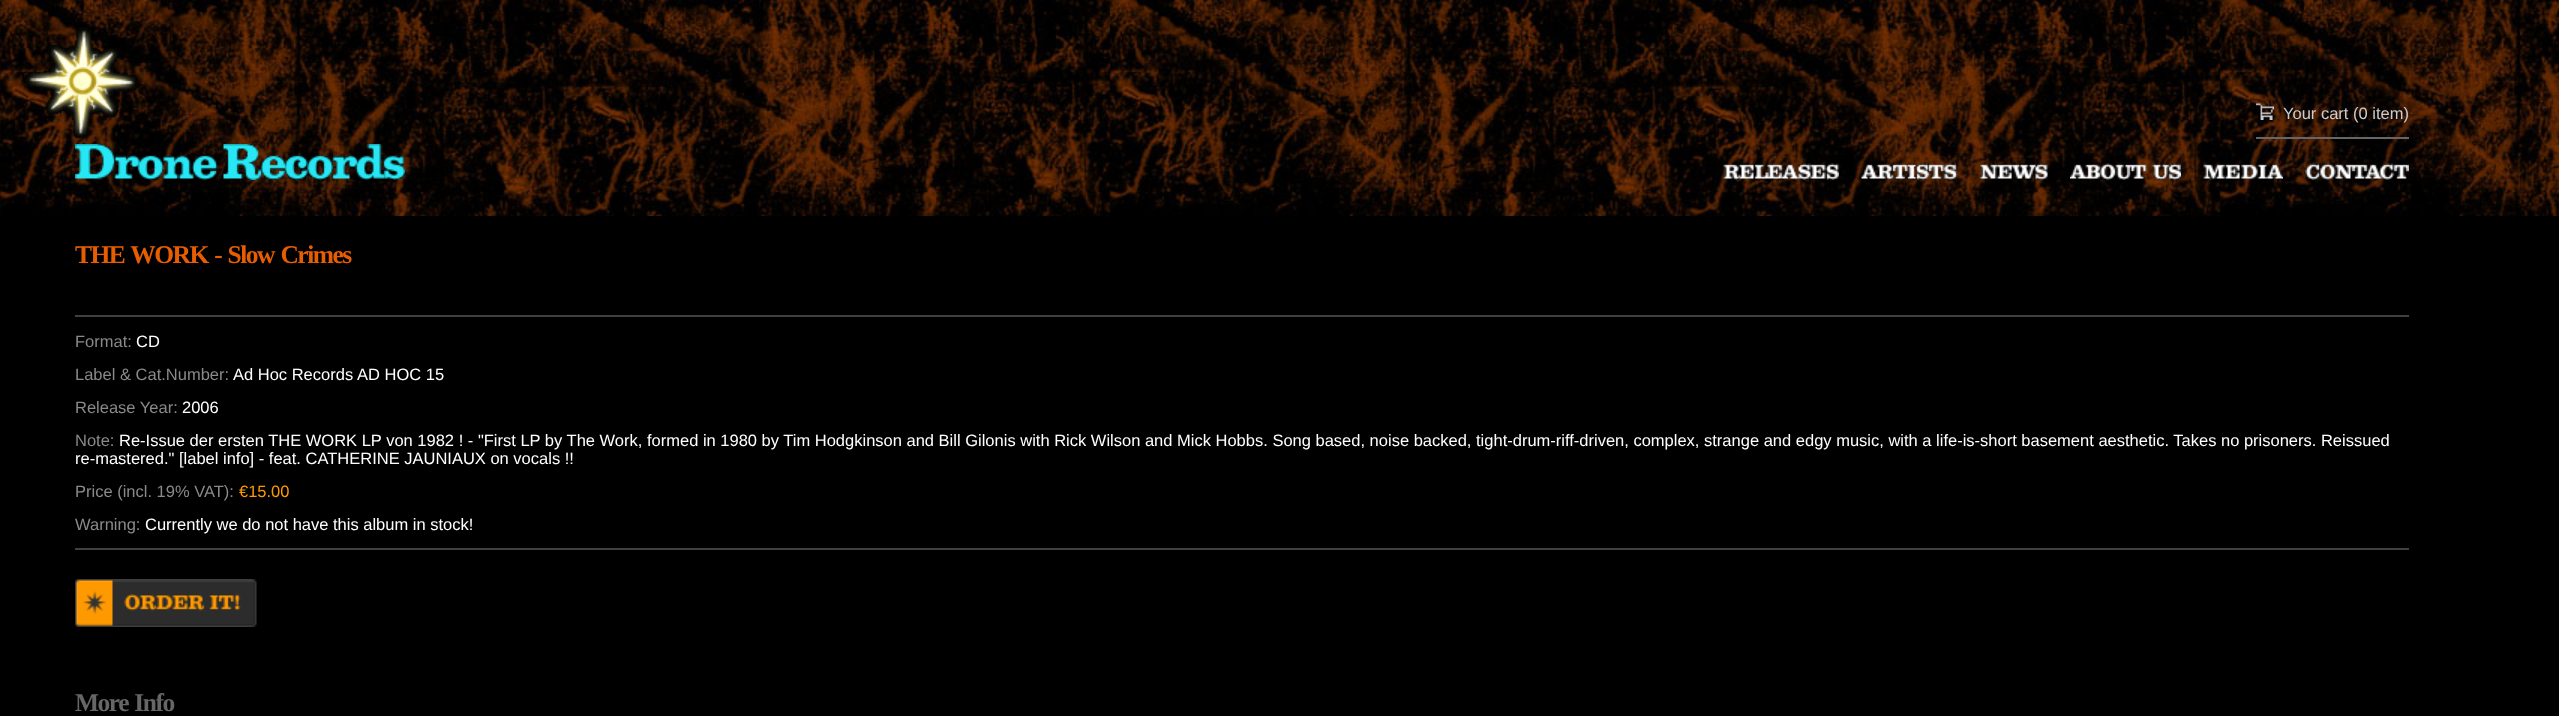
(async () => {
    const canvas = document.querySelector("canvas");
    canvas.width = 2559;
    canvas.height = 716;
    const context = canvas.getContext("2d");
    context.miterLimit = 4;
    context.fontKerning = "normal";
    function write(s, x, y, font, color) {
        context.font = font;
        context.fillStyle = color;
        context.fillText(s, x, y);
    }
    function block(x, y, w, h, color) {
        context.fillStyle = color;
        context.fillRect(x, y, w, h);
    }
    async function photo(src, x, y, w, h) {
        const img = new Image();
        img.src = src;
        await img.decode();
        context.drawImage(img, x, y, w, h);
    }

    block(0, 0, 2559, 716, "rgb(0, 0, 0)");
    await photo("media/1.png", 0, 0, 2559, 216);
    await photo("media/2.png", 25, 27, 113, 112);
    await photo("media/3.png", 75, 144, 330, 36);
    block(2256, 137, 153, 2, "rgb(102, 102, 102)");
    await photo("media/4.png", 2256, 103, 18, 17);
    write("Your cart (0 item)", 2283, 119, "16.5px Liberation Sans", "rgb(204, 204, 204)");
    await photo("media/5.png", 1723, 163, 116, 17);
    await photo("media/6.png", 1861, 163, 97, 17);
    await photo("media/7.png", 1980, 163, 68, 17);
    await photo("media/8.png", 2070, 163, 111, 17);
    await photo("media/9.png", 2203, 164, 80, 15);
    await photo("media/10.png", 2305, 163, 104, 17);
    context.letterSpacing = "-1.5px";
    context.wordSpacing = "1.5px";
    write("THE WORK - Slow Crimes", 75, 263, "bold 25.5px Liberation Serif", "rgb(231, 93, 2)");
    block(75, 315, 2334, 2, "rgb(64, 64, 64)");
    block(75, 548, 2334, 2, "rgb(64, 64, 64)");
    context.letterSpacing = "0px";
    context.wordSpacing = "0px";
    write("Format:", 75, 347, "16.5px Liberation Sans", "rgb(138, 138, 138)");
    write("CD", 136, 347, "16.5px Liberation Sans", "rgb(255, 255, 255)");
    write("Label & Cat.Number:", 75, 380, "16.5px Liberation Sans", "rgb(138, 138, 138)");
    write("Ad Hoc Records", 233, 380, "16.5px Liberation Sans", "rgb(255, 255, 255)");
    write("AD HOC 15", 357, 380, "16.5px Liberation Sans", "rgb(255, 255, 255)");
    write("Release Year:", 75, 413, "16.5px Liberation Sans", "rgb(138, 138, 138)");
    write("2006", 182, 413, "16.5px Liberation Sans", "rgb(255, 255, 255)");
    write("Note:", 75, 446, "16.5px Liberation Sans", "rgb(138, 138, 138)");
    write("Re-Issue der ersten THE WORK LP von 1982 ! - \"First LP by The Work, formed in 1980 by Tim Hodgkinson and Bill Gilonis with Rick Wilson and Mick Hobbs. Song based, noise backed, tight-drum-riff-driven, complex, strange and edgy music, with a life-is-short basement aesthetic. Takes no prisoners. Reissued", 119, 446, "16.5px Liberation Sans", "rgb(255, 255, 255)");
    write("re-mastered.\" [label info] - feat. CATHERINE JAUNIAUX on vocals !!", 75, 464, "16.5px Liberation Sans", "rgb(255, 255, 255)");
    write("Price (incl. 19% VAT):", 75, 497, "16.5px Liberation Sans", "rgb(138, 138, 138)");
    write("€15.00", 239, 497, "16.5px Liberation Sans", "rgb(255, 153, 0)");
    write("Warning:", 75, 530, "16.5px Liberation Sans", "rgb(138, 138, 138)");
    write("Currently we do not have this album in stock!", 145, 530, "16.5px Liberation Sans", "rgb(255, 255, 255)");
    await photo("media/11.png", 75, 579, 182, 48);
    context.letterSpacing = "-1.5px";
    context.wordSpacing = "1.5px";
    write("More Info", 75, 711, "bold 25.5px Liberation Serif", "rgb(102, 102, 102)");
})();
